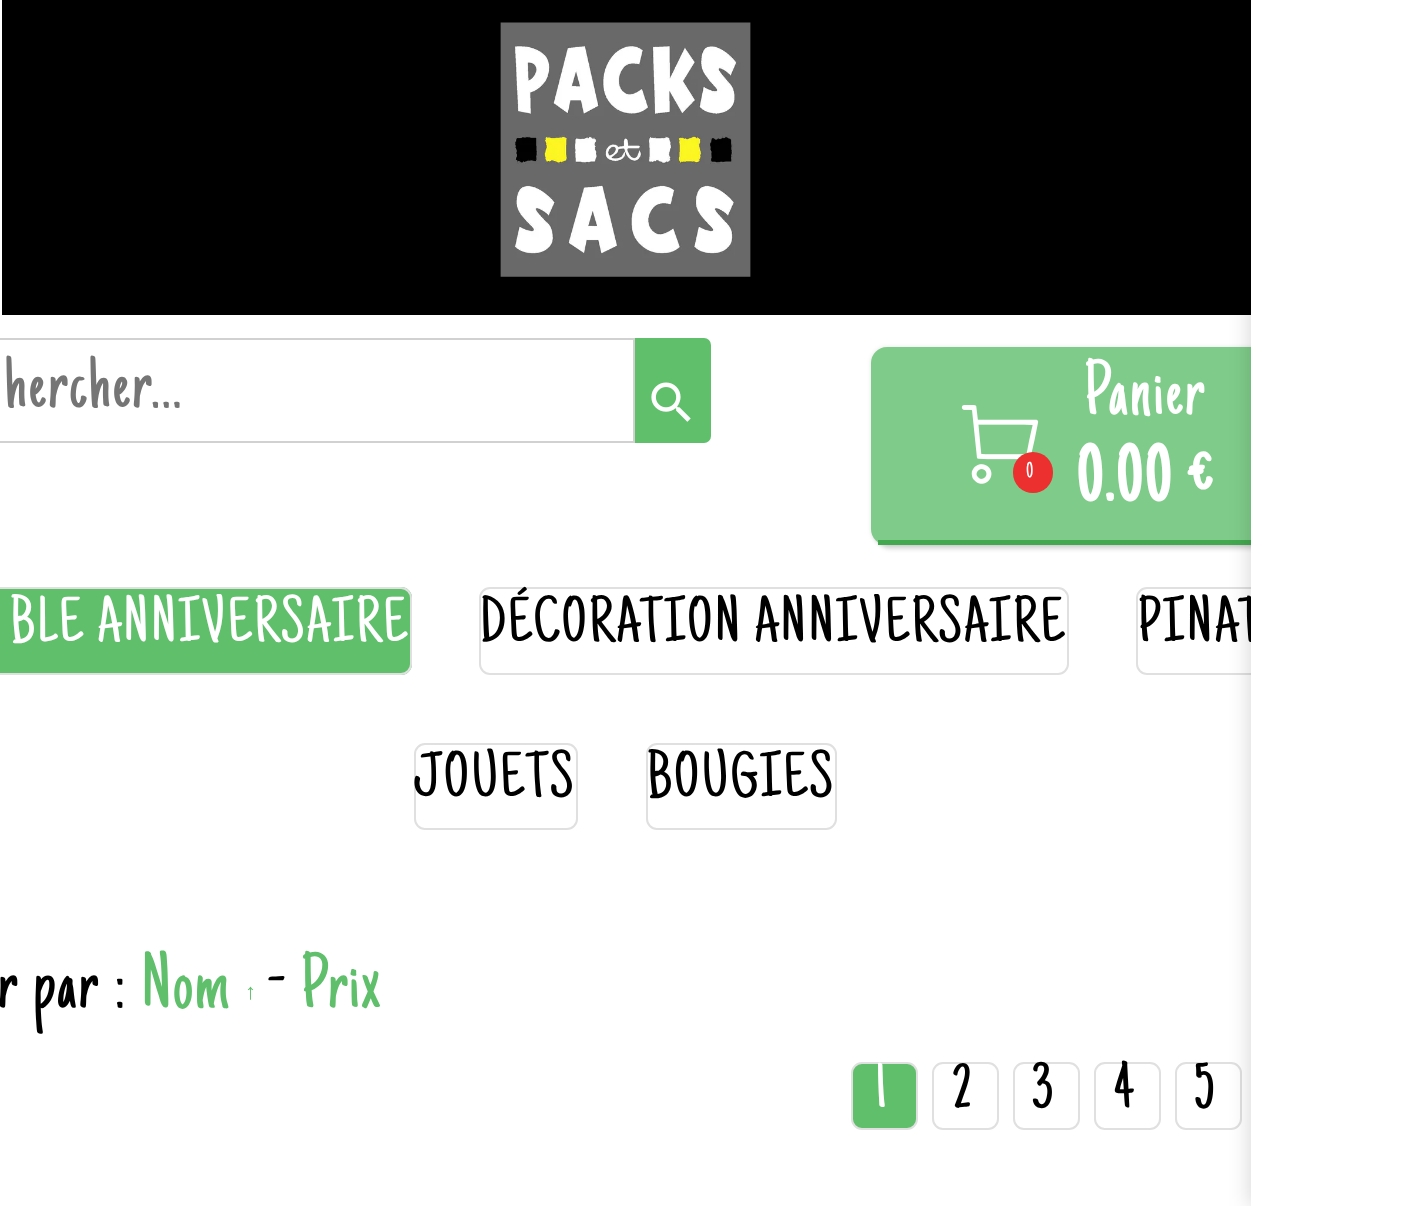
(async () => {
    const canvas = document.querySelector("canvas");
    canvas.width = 1406;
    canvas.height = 1206;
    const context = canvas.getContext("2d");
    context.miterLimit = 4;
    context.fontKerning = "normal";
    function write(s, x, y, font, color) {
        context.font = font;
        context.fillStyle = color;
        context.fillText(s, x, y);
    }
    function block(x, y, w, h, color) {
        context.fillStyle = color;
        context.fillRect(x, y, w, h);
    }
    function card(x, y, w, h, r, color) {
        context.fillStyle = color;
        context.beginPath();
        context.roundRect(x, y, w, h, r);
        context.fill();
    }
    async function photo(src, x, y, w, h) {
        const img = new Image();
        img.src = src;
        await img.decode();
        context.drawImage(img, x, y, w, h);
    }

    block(0, 0, 1406, 1206, "rgb(255, 255, 255)");
    block(2, 0, 1249, 315, "rgb(0, 0, 0)");
    await photo("media/1.png", 500, 22, 251, 255);
    context.strokeStyle = "rgb(209, 209, 209)";
    context.lineWidth = 2;
    context.strokeRect(-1, 339, 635, 103);
    context.letterSpacing = "2.4px";
    write("hercher...", 5, 407, "79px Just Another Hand", "rgb(117, 117, 117)");
    context.fillStyle = "rgb(95, 191, 107)";
    context.beginPath();
    context.roundRect(635, 338, 76, 105, [0, 7, 7, 0]);
    context.fill();
    await photo("media/2.png", 651, 382, 40, 40);
    context.fillStyle = "rgba(0, 0, 0, 0.15)";
    context.filter = "blur(2px)";
    context.beginPath();
    context.roundRect(875, 351, 450, 198, 16);
    context.fill();
    context.filter = "none";
    context.fillStyle = "rgba(0, 0, 0, 0.1)";
    context.filter = "blur(2px)";
    context.beginPath();
    context.roundRect(871, 347, 450, 198, 16);
    context.fill();
    context.filter = "none";
    card(871, 347, 450, 198, 16, "rgb(127, 204, 138)");
    block(878, 540, 373, 5, "rgb(67, 168, 80)");
    await photo("media/3.png", 961, 405, 78, 79);
    card(1013, 452, 40, 41, 20, "rgb(236, 47, 47)");
    write("0", 1026, 477, "22px Just Another Hand", "rgb(255, 255, 255)");
    write("Panier", 1084, 414, "79px Just Another Hand", "rgb(255, 255, 255)");
    write("0.00 €", 1076, 500, "bold 79px Just Another Hand", "rgb(255, 255, 255)");
    context.fillStyle = "rgb(95, 191, 107)";
    context.beginPath();
    context.roundRect(0, 587, 412, 88, [0, 11, 11, 0]);
    context.fill();
    context.beginPath();
    context.roundRect(-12, 588, 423, 86, 10);
    context.strokeStyle = "rgb(224, 224, 224)";
    context.stroke();
    write("BLE ANNIVERSAIRE", 10, 641, "65.25px Just Another Hand", "rgb(255, 255, 255)");
    context.beginPath();
    context.roundRect(480, 588, 588, 86, 10);
    context.stroke();
    write("DÉCORATION ANNIVERSAIRE", 480, 641, "65.25px Just Another Hand", "rgb(0, 0, 0)");
    context.beginPath();
    context.roundRect(1137, 588, 154, 86, 10);
    context.stroke();
    write("PINAT", 1138, 641, "65.25px Just Another Hand", "rgb(0, 0, 0)");
    context.beginPath();
    context.roundRect(415, 744, 162, 85, 10);
    context.stroke();
    write("JOUETS", 414, 796, "65.25px Just Another Hand", "rgb(0, 0, 0)");
    context.beginPath();
    context.roundRect(647, 744, 189, 85, 10);
    context.stroke();
    write("BOUGIES", 647, 796, "65.25px Just Another Hand", "rgb(0, 0, 0)");
    write("r par :", -2, 1007, "79px Just Another Hand", "rgb(0, 0, 0)");
    write("Nom", 141, 1007, "79px Just Another Hand", "rgb(95, 191, 107)");
    write("↑", 245, 999, "22px Liberation Serif", "rgb(95, 191, 107)");
    write("-", 268, 1007, "79px Just Another Hand", "rgb(0, 0, 0)");
    write("Prix", 301, 1007, "79px Just Another Hand", "rgb(95, 191, 107)");
    context.beginPath();
    context.roundRect(852, 1063, 65, 66, 10);
    context.fill();
    context.stroke();
    write("1", 875, 1107, "65.25px Just Another Hand", "rgb(255, 255, 255)");
    context.beginPath();
    context.roundRect(933, 1063, 65, 66, 10);
    context.stroke();
    write("2", 953, 1107, "65.25px Just Another Hand", "rgb(0, 0, 0)");
    context.beginPath();
    context.roundRect(1014, 1063, 65, 66, 10);
    context.stroke();
    write("3", 1032, 1107, "65.25px Just Another Hand", "rgb(0, 0, 0)");
    context.beginPath();
    context.roundRect(1095, 1063, 65, 66, 10);
    context.stroke();
    write("4", 1115, 1107, "65.25px Just Another Hand", "rgb(0, 0, 0)");
    context.beginPath();
    context.roundRect(1176, 1063, 65, 66, 10);
    context.stroke();
    write("5", 1194, 1107, "65.25px Just Another Hand", "rgb(0, 0, 0)");
    context.fillStyle = "rgba(0, 0, 0, 0.15)";
    context.filter = "blur(10px)";
    context.beginPath();
    context.rect(1249, 0, 155, 1206);
    context.fill();
    context.filter = "none";
    block(1251, 0, 155, 1206, "rgb(255, 255, 255)");
})();
